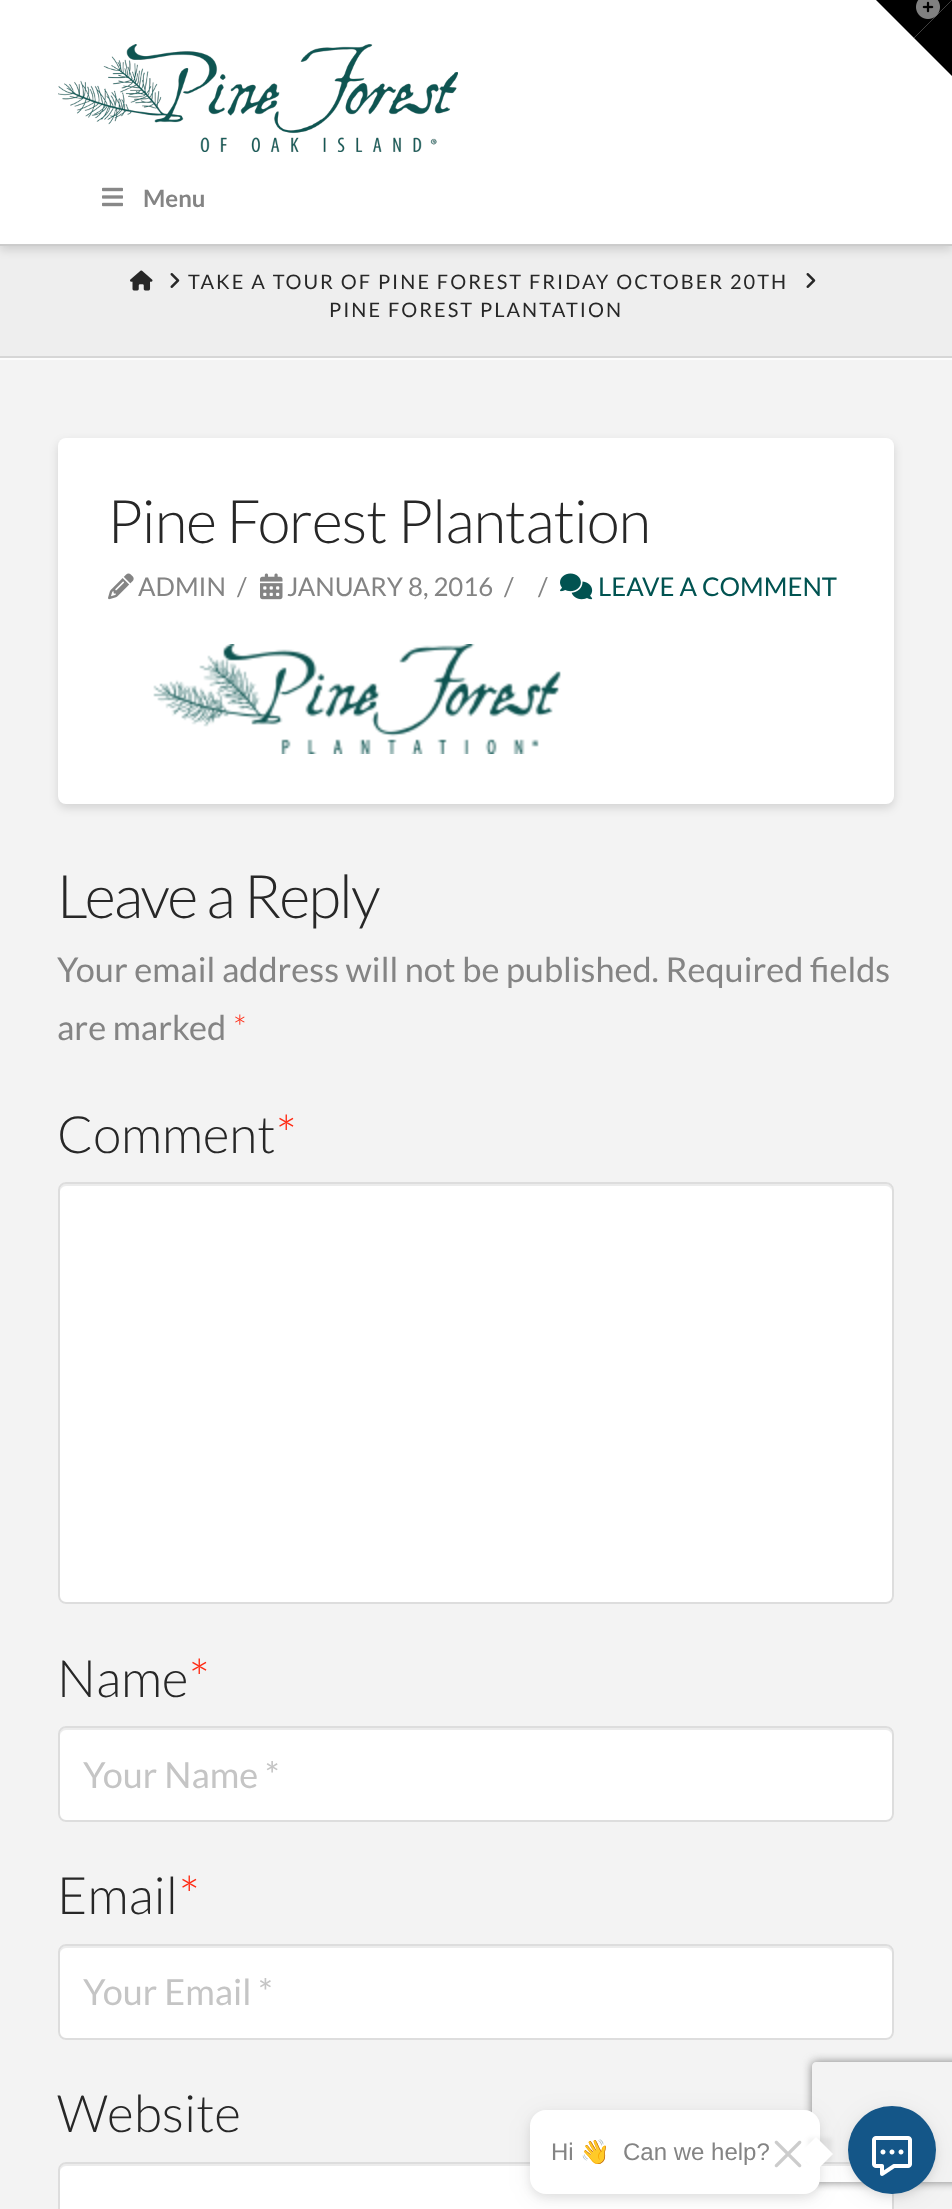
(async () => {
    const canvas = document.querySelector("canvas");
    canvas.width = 952;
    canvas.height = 2209;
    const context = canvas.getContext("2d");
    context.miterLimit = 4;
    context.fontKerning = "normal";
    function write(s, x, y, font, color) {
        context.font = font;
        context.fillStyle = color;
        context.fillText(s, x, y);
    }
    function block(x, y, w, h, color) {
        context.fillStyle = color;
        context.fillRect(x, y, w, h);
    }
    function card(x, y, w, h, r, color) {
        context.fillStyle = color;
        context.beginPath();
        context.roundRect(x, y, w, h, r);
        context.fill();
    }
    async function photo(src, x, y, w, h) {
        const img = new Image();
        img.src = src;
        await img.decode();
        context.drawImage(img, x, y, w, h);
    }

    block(0, 0, 952, 2209, "rgb(243, 243, 243)");
    block(0, 246, 952, 110, "rgb(238, 238, 238)");
    context.fillStyle = "rgba(0, 0, 0, 0.13)";
    context.filter = "blur(5px)";
    context.beginPath();
    context.rect(0, 4, 952, 246);
    context.fill();
    context.filter = "none";
    block(0, 0, 952, 244, "rgb(255, 255, 255)");
    context.fillStyle = "rgb(0, 0, 0)";
    context.beginPath();
    context.moveTo(876, 0);
    context.lineTo(952, 0);
    context.lineTo(914, 38);
    context.closePath();
    context.fill();
    context.beginPath();
    context.moveTo(952, 0);
    context.lineTo(952, 76);
    context.lineTo(914, 38);
    context.closePath();
    context.fill();
    await photo("media/1.png", 916, 0, 24, 19);
    block(0, 244, 952, 2, "rgb(204, 204, 204)");
    await photo("media/2.png", 58, 44, 400, 108);
    await photo("media/3.png", 102, 187, 21, 20);
    write("Menu", 143, 207, "bold 24px Lato", "rgb(132, 132, 132)");
    block(0, 358, 952, 2, "rgb(252, 252, 252)");
    block(0, 356, 952, 2, "rgb(214, 214, 214)");
    await photo("media/4.png", 130, 270, 23, 21);
    await photo("media/5.png", 170, 273, 10, 15);
    context.letterSpacing = "2px";
    write("TAKE A TOUR OF PINE FOREST FRIDAY OCTOBER 20TH", 188, 289, "20px Lato", "rgb(39, 39, 39)");
    await photo("media/5.png", 806, 273, 10, 15);
    write("PINE FOREST PLANTATION", 329, 317, "20px Lato", "rgb(39, 39, 39)");
    context.fillStyle = "rgba(0, 0, 0, 0.13)";
    context.filter = "blur(5px)";
    context.beginPath();
    context.roundRect(58, 442, 836, 366, 8);
    context.fill();
    context.filter = "none";
    card(58, 438, 836, 366, 8, "rgb(255, 255, 255)");
    context.letterSpacing = "-1px";
    write("Pine Forest Plantation", 107, 543, "300 60px Lato", "rgb(39, 39, 39)");
    await photo("media/6.png", 108, 573, 26, 27);
    context.letterSpacing = "0px";
    write("ADMIN", 138, 596, "25.75px Lato", "rgb(132, 132, 132)");
    write("/", 237, 596, "25.75px Lato", "rgb(132, 132, 132)");
    await photo("media/7.png", 260, 573, 23, 27);
    write("JANUARY 8, 2016", 287, 596, "25.75px Lato", "rgb(132, 132, 132)");
    write("/", 504, 596, "25.75px Lato", "rgb(132, 132, 132)");
    write("/", 538, 596, "25.75px Lato", "rgb(132, 132, 132)");
    await photo("media/8.png", 560, 573, 33, 27);
    write("LEAVE A COMMENT", 598, 596, "25.75px Lato", "rgb(1, 83, 81)");
    await photo("media/9.png", 153, 644, 408, 110);
    context.letterSpacing = "-1.75px";
    write("Leave a Reply", 57, 918, "300 60px Lato", "rgb(39, 39, 39)");
    context.letterSpacing = "0px";
    write("Your email address will not be published. Required fields", 57, 982, "34.25px Lato", "rgb(132, 132, 132)");
    write("are marked", 57, 1040, "34.25px Lato", "rgb(132, 132, 132)");
    write("*", 233, 1040, "300 34.25px Lato", "rgb(255, 42, 19)");
    write("Comment", 57, 1153, "300 51.5px Lato", "rgb(39, 39, 39)");
    write("*", 276, 1153, "300 51.5px Lato", "rgb(255, 42, 19)");
    card(58, 1182, 836, 422, 8, "rgb(255, 255, 255)");
    context.fillStyle = "rgb(236, 236, 236)";
    context.beginPath();
    context.moveTo(66, 1186);
    context.lineTo(886, 1186);
    context.bezierCurveTo(889, 1186, 892, 1189, 892, 1192);
    context.bezierCurveTo(892, 1188, 891, 1184, 886, 1184);
    context.lineTo(66, 1184);
    context.bezierCurveTo(61, 1184, 60, 1188, 60, 1192);
    context.bezierCurveTo(60, 1189, 63, 1186, 66, 1186);
    context.closePath();
    context.fill();
    context.beginPath();
    context.roundRect(59, 1183, 834, 420, 7);
    context.strokeStyle = "rgb(221, 221, 221)";
    context.lineWidth = 2;
    context.stroke();
    write("Name", 57, 1697, "300 51.5px Lato", "rgb(39, 39, 39)");
    write("*", 189, 1697, "300 51.5px Lato", "rgb(255, 42, 19)");
    card(58, 1726, 836, 96, 8, "rgb(255, 255, 255)");
    context.fillStyle = "rgb(236, 236, 236)";
    context.beginPath();
    context.moveTo(66, 1730);
    context.lineTo(886, 1730);
    context.bezierCurveTo(889, 1730, 892, 1733, 892, 1736);
    context.bezierCurveTo(892, 1732, 891, 1728, 886, 1728);
    context.lineTo(66, 1728);
    context.bezierCurveTo(61, 1728, 60, 1732, 60, 1736);
    context.bezierCurveTo(60, 1733, 63, 1730, 66, 1730);
    context.closePath();
    context.fill();
    context.beginPath();
    context.roundRect(59, 1727, 834, 94, 7);
    context.stroke();
    write("Your Name *", 83, 1788, "36px Lato", "rgb(197, 197, 197)");
    write("Email", 57, 1914, "300 51.5px Lato", "rgb(39, 39, 39)");
    write("*", 179, 1914, "300 51.5px Lato", "rgb(255, 42, 19)");
    card(58, 1944, 836, 96, 8, "rgb(255, 255, 255)");
    context.fillStyle = "rgb(236, 236, 236)";
    context.beginPath();
    context.moveTo(66, 1948);
    context.lineTo(886, 1948);
    context.bezierCurveTo(889, 1948, 892, 1951, 892, 1954);
    context.bezierCurveTo(892, 1950, 891, 1946, 886, 1946);
    context.lineTo(66, 1946);
    context.bezierCurveTo(61, 1946, 60, 1950, 60, 1954);
    context.bezierCurveTo(60, 1951, 63, 1948, 66, 1948);
    context.closePath();
    context.fill();
    context.beginPath();
    context.roundRect(59, 1945, 834, 94, 7);
    context.stroke();
    write("Your Email *", 83, 2005, "36px Lato", "rgb(197, 197, 197)");
    write("Website", 57, 2132, "300 51.5px Lato", "rgb(39, 39, 39)");
    card(58, 2162, 836, 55, 8, "rgb(255, 255, 255)");
    context.fillStyle = "rgb(236, 236, 236)";
    context.beginPath();
    context.moveTo(66, 2166);
    context.lineTo(886, 2166);
    context.bezierCurveTo(889, 2166, 892, 2169, 892, 2172);
    context.bezierCurveTo(892, 2168, 891, 2164, 886, 2164);
    context.lineTo(66, 2164);
    context.bezierCurveTo(61, 2164, 60, 2168, 60, 2172);
    context.bezierCurveTo(60, 2169, 63, 2166, 66, 2166);
    context.closePath();
    context.fill();
    context.beginPath();
    context.roundRect(59, 2163, 834, 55, 7);
    context.stroke();
    context.fillStyle = "rgba(0, 0, 0, 0.08)";
    context.filter = "blur(4px)";
    context.beginPath();
    context.roundRect(848, 2110, 88, 88, 44);
    context.fill();
    context.filter = "none";
    context.fillStyle = "rgba(0, 0, 0, 0.06)";
    context.filter = "blur(12px)";
    context.beginPath();
    context.roundRect(848, 2110, 88, 88, 44);
    context.fill();
    context.filter = "none";
    context.save();
    context.beginPath();
    context.moveTo(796, 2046);
    context.lineTo(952, 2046);
    context.lineTo(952, 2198);
    context.lineTo(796, 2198);
    context.closePath();
    context.moveTo(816, 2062);
    context.lineTo(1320, 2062);
    context.bezierCurveTo(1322, 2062, 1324, 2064, 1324, 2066);
    context.lineTo(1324, 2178);
    context.bezierCurveTo(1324, 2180, 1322, 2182, 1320, 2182);
    context.lineTo(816, 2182);
    context.bezierCurveTo(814, 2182, 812, 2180, 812, 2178);
    context.lineTo(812, 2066);
    context.bezierCurveTo(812, 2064, 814, 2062, 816, 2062);
    context.closePath();
    context.clip("evenodd");
    context.fillStyle = "rgb(128, 128, 128)";
    context.filter = "blur(5px)";
    context.beginPath();
    context.roundRect(812, 2062, 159, 120, 4);
    context.fill();
    context.filter = "none";
    context.restore();
    context.fillStyle = "rgb(20, 86, 136)";
    context.beginPath();
    context.arc(892, 2150, 44, 0, Math.PI * 2);
    context.fill();
    context.fillStyle = "rgba(0, 0, 0, 0.06)";
    context.filter = "blur(12px)";
    context.beginPath();
    context.roundRect(530, 2114, 290, 84, 16);
    context.fill();
    context.filter = "none";
    context.fillStyle = "rgba(0, 0, 0, 0.08)";
    context.filter = "blur(4px)";
    context.beginPath();
    context.roundRect(530, 2114, 290, 84, 16);
    context.fill();
    context.filter = "none";
    card(530, 2110, 290, 84, 16, "rgb(255, 255, 255)");
    write("Hi", 551, 2160, "24px Liberation Sans", "rgb(132, 132, 132)");
    write("👋", 580, 2160, "24px Noto Color Emoji", "rgb(132, 132, 132)");
    write("Can we help?", 623, 2160, "24px Liberation Sans", "rgb(132, 132, 132)");
    context.fillStyle = "rgba(0, 0, 0, 0.06)";
    context.filter = "blur(2px)";
    context.beginPath();
    context.rect(808, 2138, 24, 24);
    context.fill();
    context.filter = "none";
    context.fillStyle = "rgb(255, 255, 255)";
    context.beginPath();
    context.moveTo(816, 2137);
    context.lineTo(833, 2154);
    context.lineTo(816, 2171);
    context.lineTo(799, 2154);
    context.closePath();
    context.fill();
    await photo("media/10.png", 774, 2140, 28, 28);
    await photo("media/11.png", 872, 2136, 40, 40);
})();
